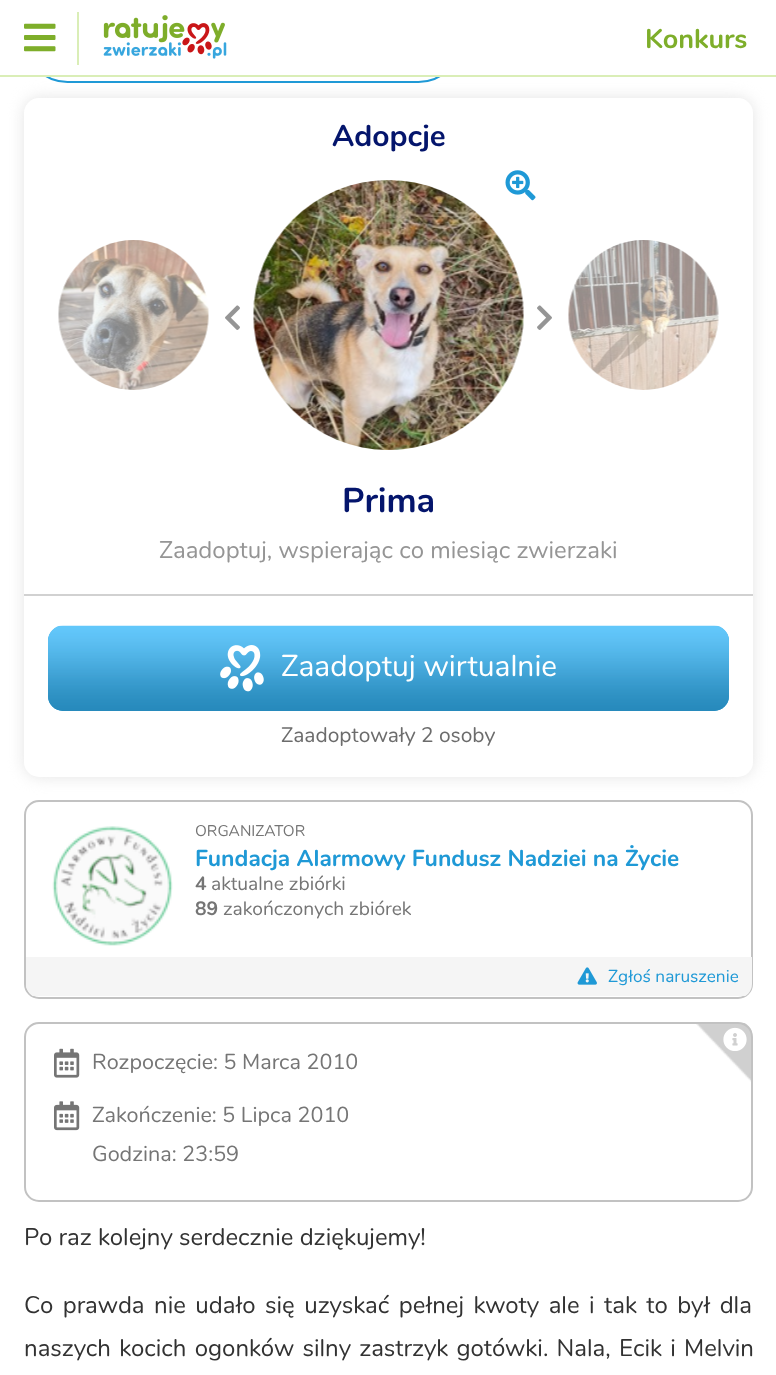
(async () => {
    const canvas = document.querySelector("canvas");
    canvas.width = 776;
    canvas.height = 1375;
    const context = canvas.getContext("2d");
    context.miterLimit = 4;
    context.fontKerning = "normal";
    function write(s, x, y, font, color) {
        context.font = font;
        context.fillStyle = color;
        context.fillText(s, x, y);
    }
    function block(x, y, w, h, color) {
        context.fillStyle = color;
        context.fillRect(x, y, w, h);
    }
    function card(x, y, w, h, r, color) {
        context.fillStyle = color;
        context.beginPath();
        context.roundRect(x, y, w, h, r);
        context.fill();
    }
    async function photo(src, x, y, w, h) {
        const img = new Image();
        img.src = src;
        await img.decode();
        context.drawImage(img, x, y, w, h);
    }

    block(0, 0, 776, 1375, "rgb(255, 255, 255)");
    context.fillStyle = "rgb(228, 228, 228)";
    context.filter = "blur(7.5px)";
    context.beginPath();
    context.roundRect(24, 98, 729, 679, 15);
    context.fill();
    context.filter = "none";
    context.beginPath();
    context.roundRect(25, -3, 436, 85, 42.5);
    context.strokeStyle = "rgb(31, 153, 214)";
    context.lineWidth = 2;
    context.stroke();
    block(24, 0, 438, 75, "rgb(255, 255, 255)");
    block(0, 75, 776, 2, "rgb(218, 238, 183)");
    block(77, 12, 2, 53, "rgb(218, 238, 183)");
    await photo("media/1.png", 24, 23, 32, 29);
    await photo("media/2.png", 103, 15, 124, 44);
    write("Konkurs", 645, 48, "bold 27px Nunito", "rgb(126, 174, 42)");
    card(24, 98, 729, 679, 15, "rgb(255, 255, 255)");
    write("Adopcje", 332, 146, "bold 30px Nunito", "rgb(4, 21, 108)");
    await photo("media/3.png", 58, 240, 151, 150);
    await photo("media/6.png", 253, 180, 271, 270);
    await photo("media/4.png", 505, 170, 31, 31);
    await photo("media/5.png", 225, 305, 15, 25);
    await photo("media/7.png", 537, 305, 15, 25);
    await photo("media/8.png", 568, 240, 151, 150);
    write("Prima", 342, 512, "bold 34.5px Nunito", "rgb(4, 21, 108)");
    write("Zaadoptuj, wspierając co miesiąc zwierzaki", 159, 558, "24px Nunito", "rgb(149, 149, 149)");
    block(24, 594, 729, 2, "rgb(209, 209, 209)");
    card(48, 626, 681, 85, 15, "rgb(31, 153, 214)");
    await photo("media/9.png", 48, 625, 681, 86);
    await photo("media/10.png", 220, 645, 44, 47);
    write("Zaadoptuj wirtualnie", 281, 676, "30px Nunito", "rgb(255, 255, 255)");
    write("Zaadoptowały 2 osoby", 281, 742, "21px Nunito", "rgb(108, 108, 108)");
    context.beginPath();
    context.roundRect(25, 801, 727, 197, 14);
    context.strokeStyle = "rgb(194, 194, 194)";
    context.stroke();
    await photo("media/11.png", 52, 826, 121, 120);
    write("ORGANIZATOR", 195, 836, "15.5px Nunito", "rgb(117, 117, 117)");
    write("Fundacja Alarmowy Fundusz Nadziei na Życie", 195, 866, "bold 23px Nunito", "rgb(31, 153, 214)");
    write("4", 195, 890, "bold 19.25px Nunito", "rgb(117, 117, 117)");
    write("aktualne zbiórki", 211, 890, "19.25px Nunito", "rgb(117, 117, 117)");
    write("89", 195, 915, "bold 19.25px Nunito", "rgb(117, 117, 117)");
    write("zakończonych zbiórek", 223, 915, "19.25px Nunito", "rgb(117, 117, 117)");
    context.save();
    context.beginPath();
    context.roundRect(26, 801, 726, 197, 14);
    context.clip();
    block(26, 957, 726, 39, "rgb(245, 245, 245)");
    context.restore();
    await photo("media/12.png", 577, 967, 20, 18);
    write("Zgłoś naruszenie", 608, 982, "17.25px Nunito", "rgb(31, 153, 214)");
    await photo("media/13.png", 696, 1023, 56, 59);
    context.beginPath();
    context.roundRect(25, 1023, 727, 178, 14);
    context.stroke();
    await photo("media/14.png", 723, 1027, 24, 24);
    await photo("media/15.png", 54, 1048, 26, 30);
    write("Rozpoczęcie: 5 Marca 2010", 92, 1069, "21.6px Nunito", "rgb(117, 117, 117)");
    await photo("media/16.png", 54, 1101, 26, 30);
    write("Zakończenie: 5 Lipca 2010", 92, 1122, "21.6px Nunito", "rgb(117, 117, 117)");
    write("Godzina: 23:59", 92, 1161, "21.6px Nunito", "rgb(117, 117, 117)");
    write("Po raz kolejny serdecznie dziękujemy!", 24, 1245, "24px Nunito", "rgb(50, 50, 50)");
    context.wordSpacing = "3.25px";
    write("Co prawda nie udało się uzyskać pełnej kwoty ale i tak to był dla", 24, 1313, "24px Nunito", "rgb(50, 50, 50)");
    context.wordSpacing = "2px";
    write("naszych kocich ogonków silny zastrzyk gotówki. Nala, Ecik i Melvin", 24, 1356, "24px Nunito", "rgb(50, 50, 50)");
})();
